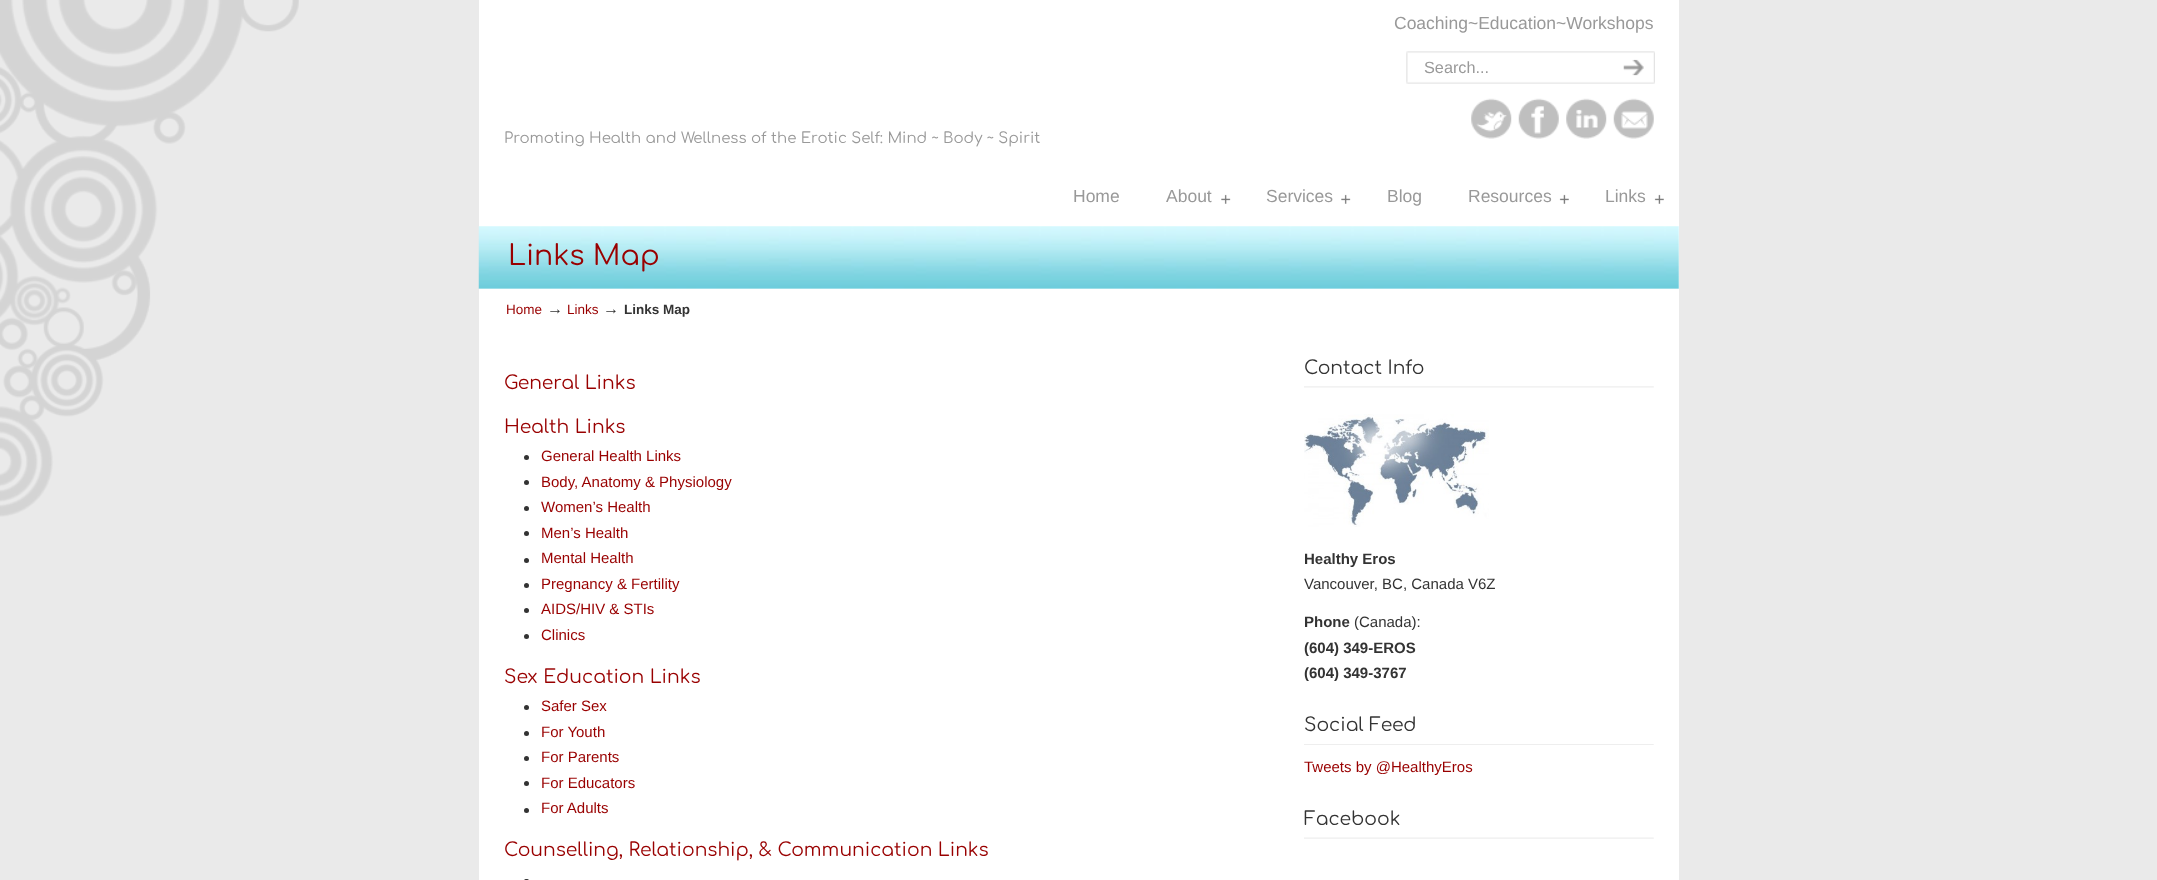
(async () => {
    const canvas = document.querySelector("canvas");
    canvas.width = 2157;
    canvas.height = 880;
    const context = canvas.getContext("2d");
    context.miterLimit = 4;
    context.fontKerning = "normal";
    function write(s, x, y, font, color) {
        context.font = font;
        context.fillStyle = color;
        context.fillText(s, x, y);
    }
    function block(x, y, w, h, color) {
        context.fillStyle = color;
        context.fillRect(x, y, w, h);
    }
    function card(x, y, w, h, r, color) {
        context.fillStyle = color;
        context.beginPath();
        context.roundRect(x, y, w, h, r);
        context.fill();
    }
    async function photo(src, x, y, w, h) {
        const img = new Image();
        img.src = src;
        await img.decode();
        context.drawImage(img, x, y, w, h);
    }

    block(0, 0, 2157, 880, "rgb(234, 234, 234)");
    await photo("media/1.png", 0, 0, 299, 517);
    block(479, 0, 1200, 880, "rgb(255, 255, 255)");
    write("Coaching~Education~Workshops", 1394, 29, "17.5px Liberation Sans", "rgb(153, 153, 153)");
    await photo("media/2.png", 1406, 51, 199, 33);
    write("Search...", 1424, 73, "16.25px Liberation Sans", "rgb(153, 153, 153)");
    await photo("media/3.png", 1605, 51, 50, 33);
    write("Promoting Health and Wellness of the Erotic Self: Mind ~ Body ~ Spirit", 504, 143, "15px Comfortaa", "rgb(153, 153, 153)");
    await photo("media/4.png", 1471, 98, 41, 41);
    await photo("media/5.png", 1518, 98, 41, 41);
    await photo("media/6.png", 1566, 98, 41, 41);
    await photo("media/7.png", 1613, 98, 41, 41);
    write("Home", 1073, 202, "17.5px Liberation Sans", "rgb(153, 153, 153)");
    write("About", 1166, 202, "17.5px Liberation Sans", "rgb(153, 153, 153)");
    await photo("media/8.png", 1221, 194, 10, 10);
    write("Services", 1266, 202, "17.5px Liberation Sans", "rgb(153, 153, 153)");
    await photo("media/8.png", 1341, 194, 10, 10);
    write("Blog", 1387, 202, "17.5px Liberation Sans", "rgb(153, 153, 153)");
    write("Resources", 1468, 202, "17.5px Liberation Sans", "rgb(153, 153, 153)");
    await photo("media/9.png", 1559, 194, 10, 10);
    write("Links", 1605, 202, "17.5px Liberation Sans", "rgb(153, 153, 153)");
    await photo("media/9.png", 1654, 194, 10, 10);
    await photo("media/10.png", 478, 226, 1201, 63);
    write("Links Map", 508, 265, "28.25px Comfortaa", "rgb(153, 0, 0)");
    await photo("media/11.png", 479, 288, 1200, 1);
    write("Home", 506, 314, "13.5px Liberation Sans", "rgb(153, 0, 0)");
    write("→", 547, 314, "16px Liberation Sans", "rgb(51, 51, 51)");
    write("Links", 567, 314, "13.5px Liberation Sans", "rgb(153, 0, 0)");
    write("→", 603, 314, "16px Liberation Sans", "rgb(51, 51, 51)");
    write("Links Map", 624, 314, "bold 13.5px Liberation Sans", "rgb(51, 51, 51)");
    write("General Links", 504, 389, "18.75px Comfortaa", "rgb(153, 0, 0)");
    write("Health Links", 504, 433, "18.75px Comfortaa", "rgb(153, 0, 0)");
    context.fillStyle = "rgb(51, 51, 51)";
    context.beginPath();
    context.arc(526.5, 457.5, 2.5, 0, Math.PI * 2);
    context.fill();
    write("General Health Links", 541, 461, "15px Liberation Sans", "rgb(153, 0, 0)");
    context.fillStyle = "rgb(51, 51, 51)";
    context.beginPath();
    context.arc(526.5, 482.5, 2.5, 0, Math.PI * 2);
    context.fill();
    write("Body, Anatomy & Physiology", 541, 487, "15px Liberation Sans", "rgb(153, 0, 0)");
    context.fillStyle = "rgb(51, 51, 51)";
    context.beginPath();
    context.arc(526.5, 508.5, 2.5, 0, Math.PI * 2);
    context.fill();
    write("Women’s Health", 541, 512, "15px Liberation Sans", "rgb(153, 0, 0)");
    context.fillStyle = "rgb(51, 51, 51)";
    context.beginPath();
    context.arc(526.5, 533.5, 2.5, 0, Math.PI * 2);
    context.fill();
    write("Men’s Health", 541, 538, "15px Liberation Sans", "rgb(153, 0, 0)");
    context.fillStyle = "rgb(51, 51, 51)";
    context.beginPath();
    context.arc(526.5, 560.5, 2.5, 0, Math.PI * 2);
    context.fill();
    write("Mental Health", 541, 563, "15px Liberation Sans", "rgb(153, 0, 0)");
    context.fillStyle = "rgb(51, 51, 51)";
    context.beginPath();
    context.arc(526.5, 585.5, 2.5, 0, Math.PI * 2);
    context.fill();
    write("Pregnancy & Fertility", 541, 589, "15px Liberation Sans", "rgb(153, 0, 0)");
    context.fillStyle = "rgb(51, 51, 51)";
    context.beginPath();
    context.arc(526.5, 610.5, 2.5, 0, Math.PI * 2);
    context.fill();
    write("AIDS/HIV & STIs", 541, 614, "15px Liberation Sans", "rgb(153, 0, 0)");
    context.fillStyle = "rgb(51, 51, 51)";
    context.beginPath();
    context.arc(526.5, 636.5, 2.5, 0, Math.PI * 2);
    context.fill();
    write("Clinics", 541, 640, "15px Liberation Sans", "rgb(153, 0, 0)");
    write("Sex Education Links", 504, 683, "18.75px Comfortaa", "rgb(153, 0, 0)");
    context.fillStyle = "rgb(51, 51, 51)";
    context.beginPath();
    context.arc(526.5, 707.5, 2.5, 0, Math.PI * 2);
    context.fill();
    write("Safer Sex", 541, 711, "15px Liberation Sans", "rgb(153, 0, 0)");
    context.fillStyle = "rgb(51, 51, 51)";
    context.beginPath();
    context.arc(526.5, 733.5, 2.5, 0, Math.PI * 2);
    context.fill();
    write("For Youth", 541, 737, "15px Liberation Sans", "rgb(153, 0, 0)");
    context.fillStyle = "rgb(51, 51, 51)";
    context.beginPath();
    context.arc(526.5, 758.5, 2.5, 0, Math.PI * 2);
    context.fill();
    write("For Parents", 541, 762, "15px Liberation Sans", "rgb(153, 0, 0)");
    context.fillStyle = "rgb(51, 51, 51)";
    context.beginPath();
    context.arc(526.5, 783.5, 2.5, 0, Math.PI * 2);
    context.fill();
    write("For Educators", 541, 788, "15px Liberation Sans", "rgb(153, 0, 0)");
    context.fillStyle = "rgb(51, 51, 51)";
    context.beginPath();
    context.arc(526.5, 810.5, 2.5, 0, Math.PI * 2);
    context.fill();
    write("For Adults", 541, 813, "15px Liberation Sans", "rgb(153, 0, 0)");
    write("Counselling, Relationship, & Communication Links", 504, 856, "18.75px Comfortaa", "rgb(153, 0, 0)");
    card(524, 879, 5, 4, 2.5, "rgb(51, 51, 51)");
    await photo("media/12.png", 1304, 386, 350, 2);
    write("Contact Info", 1304, 374, "18.75px Comfortaa", "rgb(51, 51, 51)");
    await photo("media/13.png", 1304, 414, 185, 113);
    write("Healthy Eros", 1304, 564, "bold 15px Liberation Sans", "rgb(51, 51, 51)");
    write("Vancouver, BC, Canada V6Z", 1304, 589, "15px Liberation Sans", "rgb(51, 51, 51)");
    write("Phone", 1304, 627, "bold 15px Liberation Sans", "rgb(51, 51, 51)");
    write("(Canada):", 1354, 627, "15px Liberation Sans", "rgb(51, 51, 51)");
    write("(604) 349-EROS", 1304, 653, "bold 15px Liberation Sans", "rgb(51, 51, 51)");
    write("(604) 349-3767", 1304, 678, "bold 15px Liberation Sans", "rgb(51, 51, 51)");
    await photo("media/14.png", 1304, 744, 350, 1);
    write("Social Feed", 1304, 731, "18.75px Comfortaa", "rgb(51, 51, 51)");
    write("Tweets by @HealthyEros", 1304, 772, "15px Liberation Sans", "rgb(153, 0, 0)");
    await photo("media/15.png", 1304, 837, 350, 2);
    write("Facebook", 1304, 825, "18.75px Comfortaa", "rgb(51, 51, 51)");
})();
